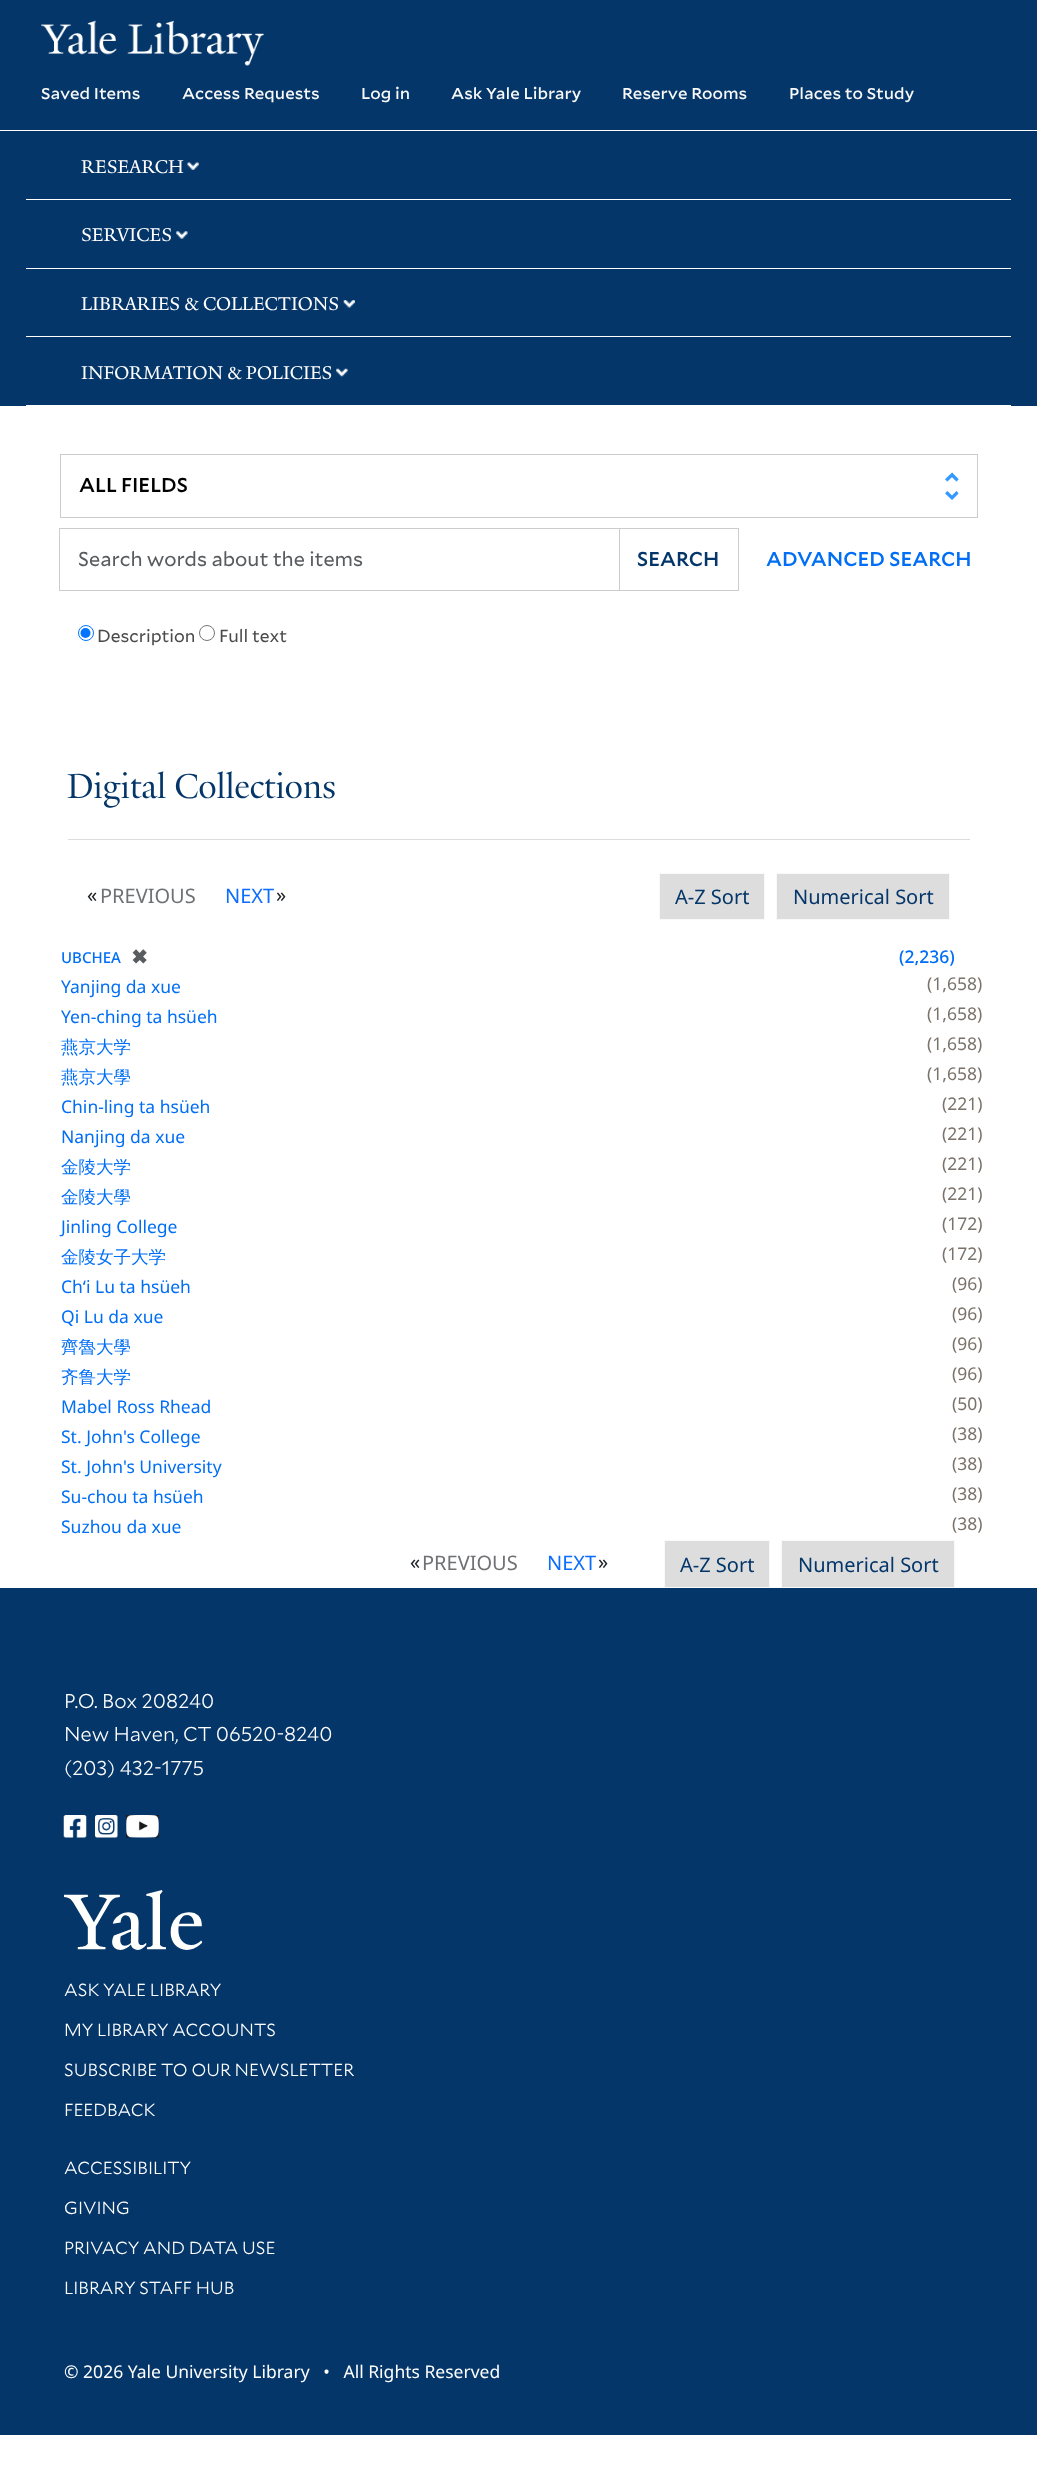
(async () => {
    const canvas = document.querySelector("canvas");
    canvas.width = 1037;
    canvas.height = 2465;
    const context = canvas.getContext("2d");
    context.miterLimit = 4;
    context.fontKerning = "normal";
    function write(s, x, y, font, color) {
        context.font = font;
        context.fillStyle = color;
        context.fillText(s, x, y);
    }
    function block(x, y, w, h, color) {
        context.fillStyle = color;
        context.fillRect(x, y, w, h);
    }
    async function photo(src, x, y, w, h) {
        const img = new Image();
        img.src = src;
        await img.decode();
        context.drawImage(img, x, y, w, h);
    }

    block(0, 0, 1037, 2465, "rgb(255, 255, 255)");
    block(0, 0, 1037, 130, "rgb(4, 54, 105)");
    await photo("media/1.png", 41, 20, 223, 46);
    write("Saved Items", 41, 99, "500 15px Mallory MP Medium", "rgb(249, 249, 249)");
    write("Access Requests", 182, 99, "500 15px Mallory MP Medium", "rgb(249, 249, 249)");
    write("Log in", 361, 99, "500 15px Mallory MP Medium", "rgb(249, 249, 249)");
    write("Ask Yale Library", 451, 99, "500 15px Mallory MP Medium", "rgb(249, 249, 249)");
    write("Reserve Rooms", 622, 99, "500 15px Mallory MP Medium", "rgb(249, 249, 249)");
    write("Places to Study", 789, 99, "500 15px Mallory MP Medium", "rgb(249, 249, 249)");
    block(0, 131, 1037, 275, "rgb(4, 54, 105)");
    block(26, 199, 985, 1, "rgb(255, 255, 255)");
    write("RESEARCH", 81, 173, "20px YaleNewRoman", "rgb(255, 255, 255)");
    await photo("media/2.png", 187, 162, 12, 8);
    block(26, 268, 985, 1, "rgb(255, 255, 255)");
    write("SERVICES", 81, 241, "20px YaleNewRoman", "rgb(255, 255, 255)");
    await photo("media/3.png", 176, 231, 12, 8);
    block(26, 336, 985, 1, "rgb(255, 255, 255)");
    write("LIBRARIES & COLLECTIONS", 81, 310, "20px YaleNewRoman", "rgb(255, 255, 255)");
    await photo("media/4.png", 343, 300, 12, 8);
    block(26, 405, 985, 1, "rgb(255, 255, 255)");
    write("INFORMATION & POLICIES", 81, 379, "20px YaleNewRoman", "rgb(255, 255, 255)");
    await photo("media/5.png", 336, 368, 12, 9);
    await photo("media/6.png", 945, 472, 14, 28);
    context.strokeStyle = "rgb(204, 204, 204)";
    context.strokeRect(60.5, 454.5, 917, 63);
    write("ALL FIELDS", 79, 492, "500 20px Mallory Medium", "rgb(0, 0, 0)");
    context.strokeRect(59.5, 528.5, 560, 62);
    write("Search words about the items", 78, 566, "20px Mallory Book", "rgb(89, 92, 95)");
    context.strokeRect(619.5, 528.5, 119, 62);
    write("SEARCH", 637, 566, "500 20px Mallory Medium", "rgb(4, 54, 105)");
    write("ADVANCED SEARCH", 766, 566, "500 20px Mallory Medium", "rgb(0, 110, 245)");
    context.beginPath();
    context.arc(86, 633, 7.5, 0, Math.PI * 2);
    context.strokeStyle = "rgb(0, 117, 255)";
    context.stroke();
    context.fillStyle = "rgb(0, 117, 255)";
    context.beginPath();
    context.arc(85.5, 633, 5, 0, Math.PI * 2);
    context.fill();
    write("Description", 97, 642, "17.5px Mallory Book", "rgb(74, 74, 74)");
    context.beginPath();
    context.arc(207, 633, 7.5, 0, Math.PI * 2);
    context.strokeStyle = "rgb(118, 118, 118)";
    context.stroke();
    write("Full text", 219, 642, "17.5px Mallory Book", "rgb(74, 74, 74)");
    block(68, 839, 902, 1, "rgb(221, 221, 221)");
    write("Digital Collections", 67, 798, "37.5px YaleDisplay", "rgb(4, 54, 105)");
    write("«", 87, 902, "20px Noto Sans", "rgb(33, 37, 41)");
    write("PREVIOUS", 100, 903, "20px Noto Sans", "rgb(111, 113, 116)");
    write("NEXT", 225, 903, "20px Noto Sans", "rgb(13, 110, 253)");
    write("»", 276, 902, "20px Noto Sans", "rgb(33, 37, 41)");
    context.fillStyle = "rgb(221, 221, 221)";
    context.beginPath();
    context.rect(659.5, 873.5, 105, 46);
    context.fill();
    context.strokeStyle = "rgb(249, 249, 249)";
    context.stroke();
    write("A-Z Sort", 675, 904, "20px Noto Sans", "rgb(4, 54, 105)");
    context.fillStyle = "rgb(221, 221, 221)";
    context.beginPath();
    context.rect(776.5, 873.5, 173, 46);
    context.fill();
    context.stroke();
    write("Numerical Sort", 793, 904, "20px Noto Sans", "rgb(4, 54, 105)");
    write("UBCHEA", 61, 963, "500 15px Noto Sans", "rgb(0, 110, 245)");
    write("✖", 131, 964, "bold 20px DejaVu Sans", "rgb(89, 92, 95)");
    write("(2,236)", 899, 963, "500 17.5px Noto Sans", "rgb(0, 110, 245)");
    write("Yanjing da xue", 61, 993, "17.5px Noto Sans", "rgb(0, 110, 245)");
    write("(1,658)", 927, 990, "17.5px Noto Sans", "rgb(123, 115, 107)");
    write("Yen-ching ta hsüeh", 61, 1023, "17.5px Noto Sans", "rgb(0, 110, 245)");
    write("(1,658)", 927, 1020, "17.5px Noto Sans", "rgb(123, 115, 107)");
    write("燕京大学", 61, 1053, "500 17.5px WenQuanYi Zen Hei", "rgb(0, 110, 245)");
    write("(1,658)", 927, 1050, "17.5px Noto Sans", "rgb(123, 115, 107)");
    write("燕京大學", 61, 1083, "500 17.5px WenQuanYi Zen Hei", "rgb(0, 110, 245)");
    write("(1,658)", 927, 1080, "17.5px Noto Sans", "rgb(123, 115, 107)");
    write("Chin-ling ta hsüeh", 61, 1113, "17.5px Noto Sans", "rgb(0, 110, 245)");
    write("(221)", 942, 1110, "17.5px Noto Sans", "rgb(123, 115, 107)");
    write("Nanjing da xue", 61, 1143, "17.5px Noto Sans", "rgb(0, 110, 245)");
    write("(221)", 942, 1140, "17.5px Noto Sans", "rgb(123, 115, 107)");
    write("金陵大学", 61, 1173, "500 17.5px WenQuanYi Zen Hei", "rgb(0, 110, 245)");
    write("(221)", 942, 1170, "17.5px Noto Sans", "rgb(123, 115, 107)");
    write("金陵大學", 61, 1203, "500 17.5px WenQuanYi Zen Hei", "rgb(0, 110, 245)");
    write("(221)", 942, 1200, "17.5px Noto Sans", "rgb(123, 115, 107)");
    write("Jinling College", 61, 1233, "17.5px Noto Sans", "rgb(0, 110, 245)");
    write("(172)", 942, 1230, "17.5px Noto Sans", "rgb(123, 115, 107)");
    write("金陵女子大学", 61, 1263, "500 17.5px WenQuanYi Zen Hei", "rgb(0, 110, 245)");
    write("(172)", 942, 1260, "17.5px Noto Sans", "rgb(123, 115, 107)");
    write("Chʻi Lu ta hsüeh", 61, 1293, "17.5px Noto Sans", "rgb(0, 110, 245)");
    write("(96)", 952, 1290, "17.5px Noto Sans", "rgb(123, 115, 107)");
    write("Qi Lu da xue", 61, 1323, "17.5px Noto Sans", "rgb(0, 110, 245)");
    write("(96)", 952, 1320, "17.5px Noto Sans", "rgb(123, 115, 107)");
    write("齊魯大學", 61, 1353, "500 17.5px WenQuanYi Zen Hei", "rgb(0, 110, 245)");
    write("(96)", 952, 1350, "17.5px Noto Sans", "rgb(123, 115, 107)");
    write("齐鲁大学", 61, 1383, "500 17.5px WenQuanYi Zen Hei", "rgb(0, 110, 245)");
    write("(96)", 952, 1380, "17.5px Noto Sans", "rgb(123, 115, 107)");
    write("Mabel Ross Rhead", 61, 1413, "17.5px Noto Sans", "rgb(0, 110, 245)");
    write("(50)", 952, 1410, "17.5px Noto Sans", "rgb(123, 115, 107)");
    write("St. John's College", 61, 1443, "17.5px Noto Sans", "rgb(0, 110, 245)");
    write("(38)", 952, 1440, "17.5px Noto Sans", "rgb(123, 115, 107)");
    write("St. John's University", 61, 1473, "17.5px Noto Sans", "rgb(0, 110, 245)");
    write("(38)", 952, 1470, "17.5px Noto Sans", "rgb(123, 115, 107)");
    write("Su-chou ta hsüeh", 61, 1503, "17.5px Noto Sans", "rgb(0, 110, 245)");
    write("(38)", 952, 1500, "17.5px Noto Sans", "rgb(123, 115, 107)");
    write("Suzhou da xue", 61, 1533, "17.5px Noto Sans", "rgb(0, 110, 245)");
    write("(38)", 952, 1530, "17.5px Noto Sans", "rgb(123, 115, 107)");
    write("«", 410, 1569, "20px Noto Sans", "rgb(33, 37, 41)");
    write("PREVIOUS", 422, 1570, "20px Noto Sans", "rgb(111, 113, 116)");
    write("NEXT", 547, 1570, "20px Noto Sans", "rgb(13, 110, 253)");
    write("»", 598, 1569, "20px Noto Sans", "rgb(33, 37, 41)");
    context.fillStyle = "rgb(221, 221, 221)";
    context.beginPath();
    context.rect(664.5, 1540.5, 105, 47);
    context.fill();
    context.stroke();
    write("A-Z Sort", 680, 1572, "20px Noto Sans", "rgb(4, 54, 105)");
    context.fillStyle = "rgb(221, 221, 221)";
    context.beginPath();
    context.rect(781.5, 1540.5, 173, 47);
    context.fill();
    context.stroke();
    write("Numerical Sort", 798, 1572, "20px Noto Sans", "rgb(4, 54, 105)");
    block(0, 1588, 1037, 847, "rgb(4, 54, 105)");
    write("P.O. Box 208240", 64, 1708, "300 20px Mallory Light", "rgb(255, 255, 255)");
    write("New Haven, CT 06520-8240", 64, 1741, "300 20px Mallory Light", "rgb(255, 255, 255)");
    write("(203) 432-1775", 64, 1775, "300 20px Mallory Light", "rgb(255, 255, 255)");
    await photo("media/7.png", 63, 1815, 24, 23);
    await photo("media/8.png", 95, 1815, 23, 23);
    await photo("media/9.png", 126, 1815, 33, 23);
    await photo("media/10.png", 64, 1890, 139, 60);
    write("ASK YALE LIBRARY", 64, 1996, "300 17.5px Mallory Light", "rgb(255, 255, 255)");
    write("MY LIBRARY ACCOUNTS", 64, 2036, "300 17.5px Mallory Light", "rgb(255, 255, 255)");
    write("SUBSCRIBE TO OUR NEWSLETTER", 64, 2076, "300 17.5px Mallory Light", "rgb(255, 255, 255)");
    write("FEEDBACK", 64, 2116, "300 17.5px Mallory Light", "rgb(255, 255, 255)");
    write("ACCESSIBILITY", 64, 2174, "300 17.5px Mallory Light", "rgb(255, 255, 255)");
    write("GIVING", 64, 2214, "300 17.5px Mallory Light", "rgb(255, 255, 255)");
    write("PRIVACY AND DATA USE", 64, 2254, "300 17.5px Mallory Light", "rgb(255, 255, 255)");
    write("LIBRARY STAFF HUB", 64, 2294, "300 17.5px Mallory Light", "rgb(255, 255, 255)");
    write("© 2026 Yale University Library   •   All Rights Reserved", 64, 2378, "17.5px Noto Sans", "rgb(255, 255, 255)");
})();
